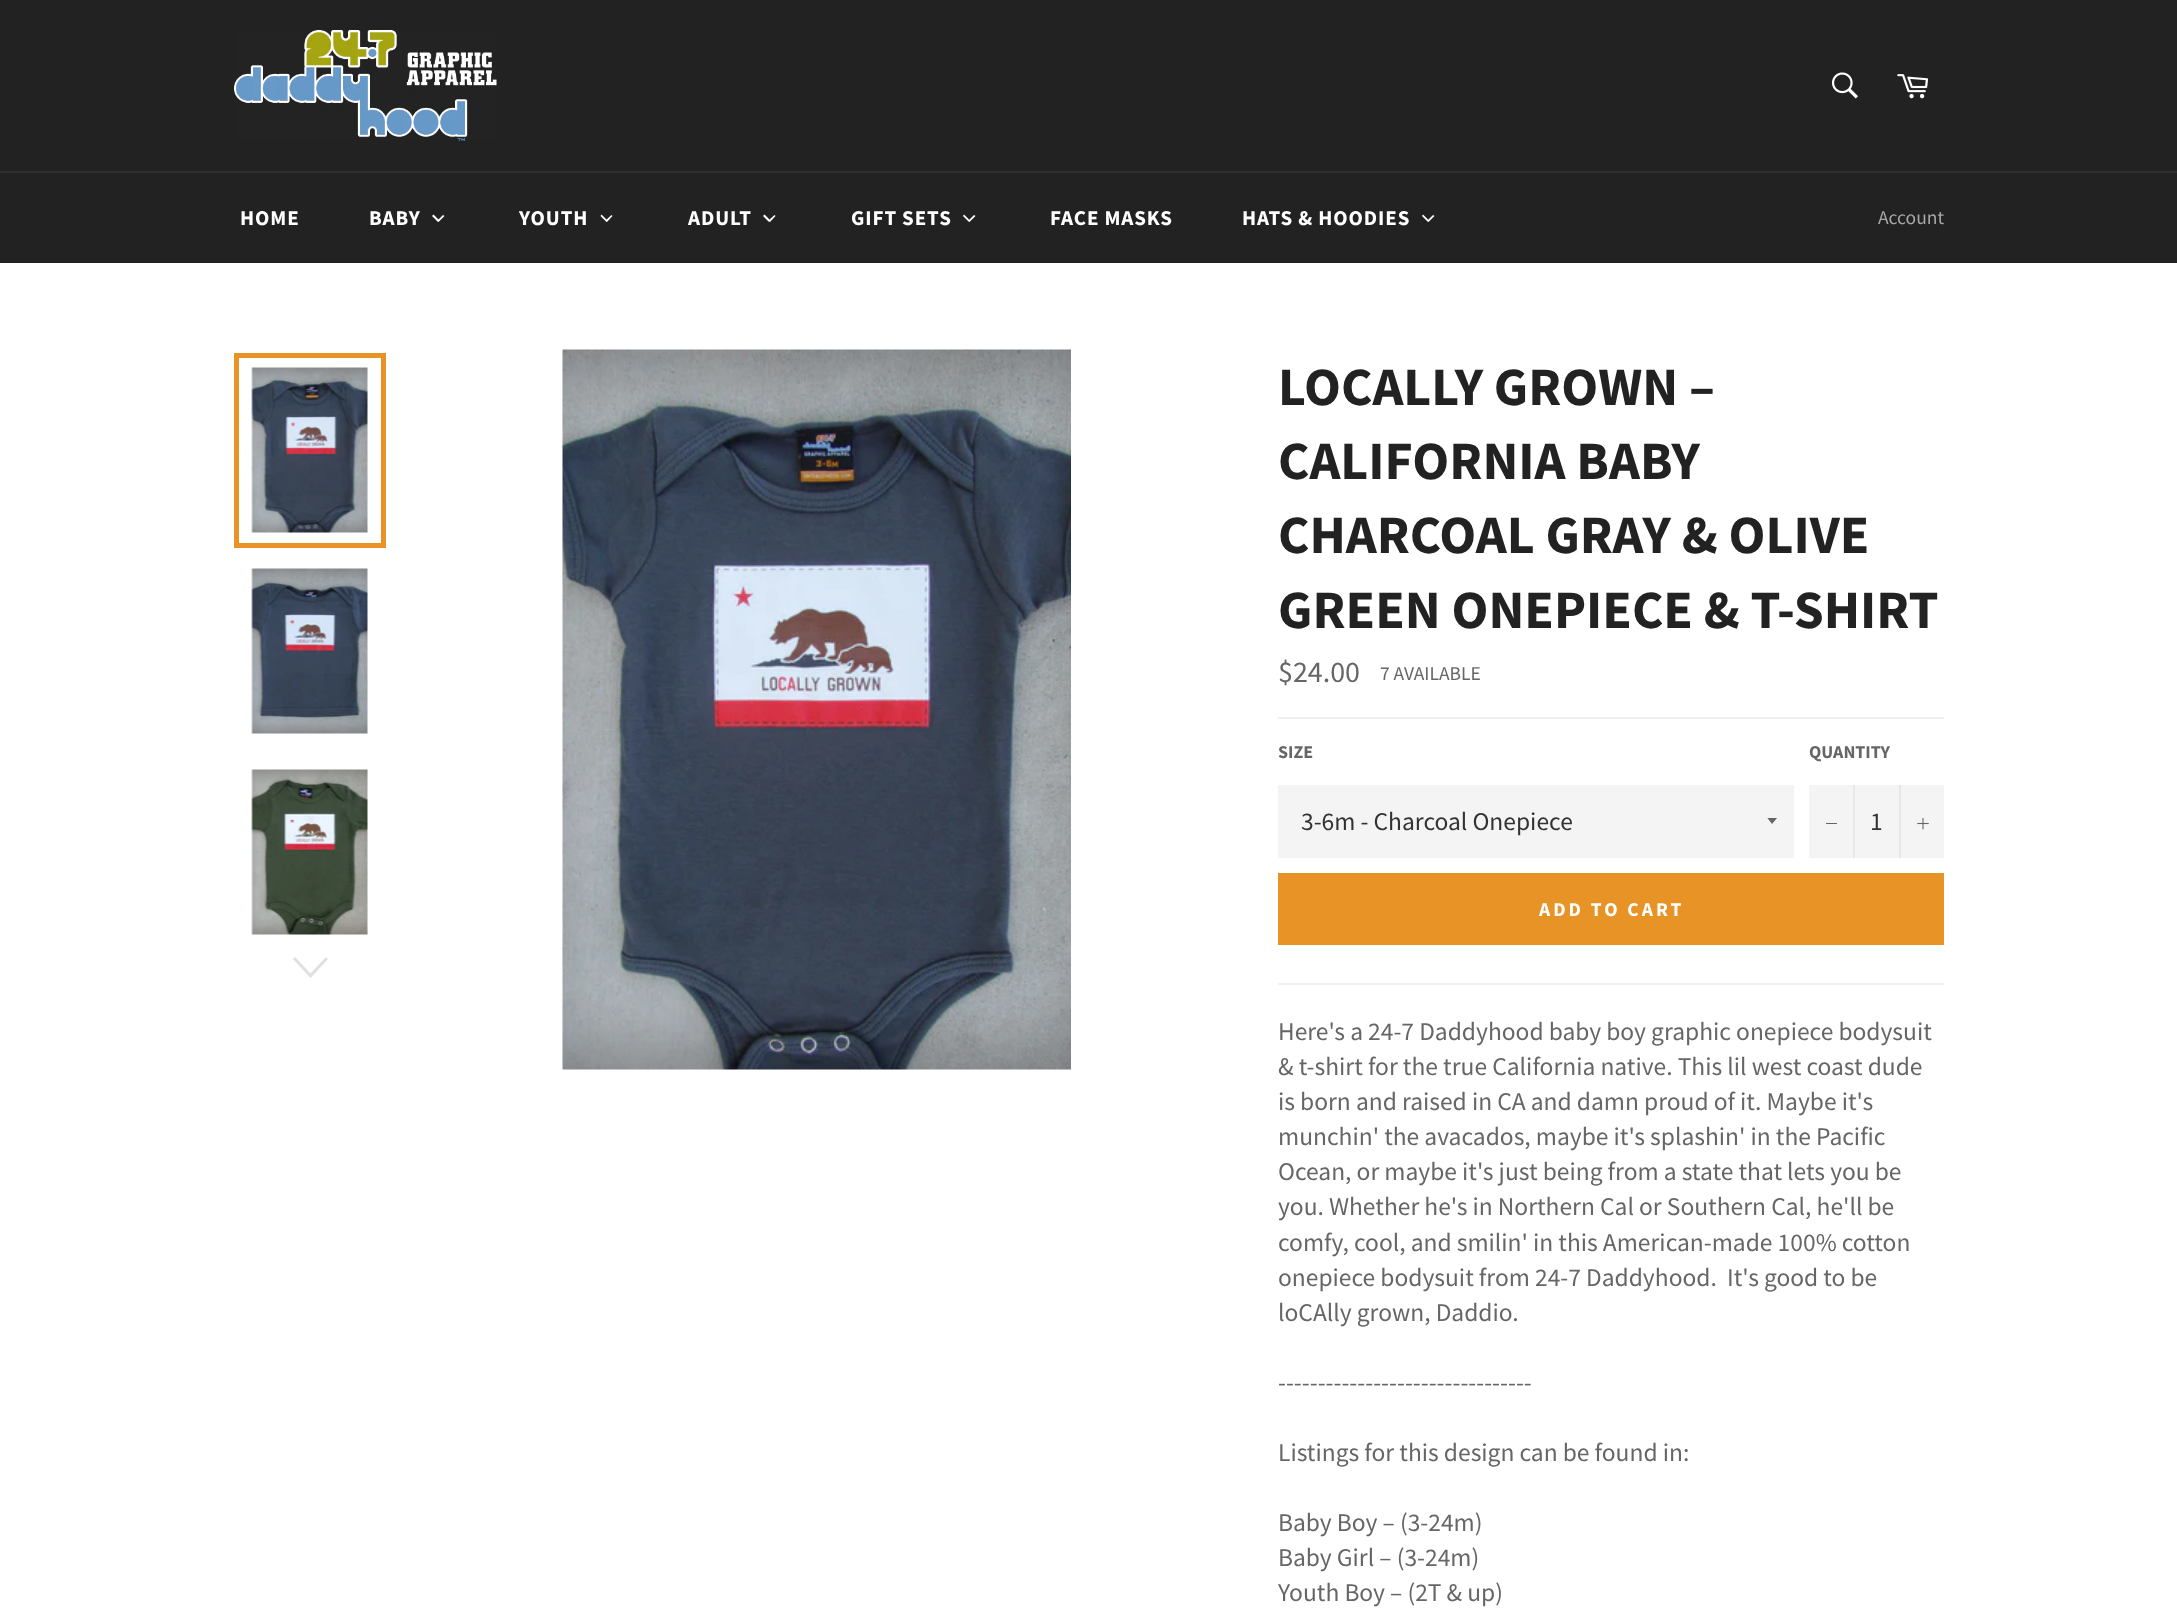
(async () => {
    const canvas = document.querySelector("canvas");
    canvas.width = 2177;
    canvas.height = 1619;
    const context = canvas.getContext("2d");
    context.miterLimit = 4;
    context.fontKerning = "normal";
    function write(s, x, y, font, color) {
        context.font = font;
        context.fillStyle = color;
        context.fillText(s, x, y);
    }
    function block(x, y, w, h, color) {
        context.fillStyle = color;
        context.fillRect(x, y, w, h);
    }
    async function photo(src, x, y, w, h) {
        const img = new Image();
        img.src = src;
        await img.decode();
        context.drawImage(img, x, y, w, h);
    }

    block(0, 0, 2177, 1619, "rgb(255, 255, 255)");
    block(0, 0, 2177, 171, "rgb(34, 34, 34)");
    await photo("media/1.png", 234, 30, 263, 111);
    await photo("media/2.png", 1831, 72, 27, 27);
    await photo("media/3.png", 1897, 74, 31, 25);
    block(0, 173, 2177, 90, "rgb(34, 34, 34)");
    block(0, 171, 2177, 2, "rgb(47, 47, 47)");
    context.letterSpacing = "0.9px";
    write("HOME", 240, 225, "bold 21px Source Sans Pro", "rgb(255, 255, 255)");
    write("BABY", 369, 225, "bold 21px Source Sans Pro", "rgb(255, 255, 255)");
    context.beginPath();
    context.moveTo(443, 215);
    context.lineTo(444.5, 216);
    context.lineTo(438.5, 222);
    context.lineTo(437.5, 220.5);
    context.closePath();
    context.fill();
    context.beginPath();
    context.moveTo(433.5, 214.5);
    context.lineTo(439.5, 220.5);
    context.lineTo(438, 222);
    context.lineTo(432, 216);
    context.closePath();
    context.fill();
    write("YOUTH", 519, 225, "bold 21px Source Sans Pro", "rgb(255, 255, 255)");
    context.beginPath();
    context.moveTo(611.5, 215);
    context.lineTo(612.5, 216);
    context.lineTo(607, 222);
    context.lineTo(605.5, 220.5);
    context.closePath();
    context.fill();
    context.beginPath();
    context.moveTo(601.5, 214.5);
    context.lineTo(607.5, 220.5);
    context.lineTo(606.5, 222);
    context.lineTo(600.5, 216);
    context.closePath();
    context.fill();
    write("ADULT", 688, 225, "bold 21px Source Sans Pro", "rgb(255, 255, 255)");
    context.beginPath();
    context.moveTo(774.5, 215);
    context.lineTo(775.5, 216);
    context.lineTo(770, 222);
    context.lineTo(768.5, 220.5);
    context.closePath();
    context.fill();
    context.beginPath();
    context.moveTo(764.5, 214.5);
    context.lineTo(770.5, 220.5);
    context.lineTo(769, 222);
    context.lineTo(763, 216);
    context.closePath();
    context.fill();
    write("GIFT SETS", 851, 225, "bold 21px Source Sans Pro", "rgb(255, 255, 255)");
    context.beginPath();
    context.moveTo(974, 215);
    context.lineTo(975.5, 216);
    context.lineTo(969.5, 222);
    context.lineTo(968.5, 220.5);
    context.closePath();
    context.fill();
    context.beginPath();
    context.moveTo(964, 214.5);
    context.lineTo(970, 220.5);
    context.lineTo(969, 222);
    context.lineTo(963, 216);
    context.closePath();
    context.fill();
    write("FACE MASKS", 1050, 225, "bold 21px Source Sans Pro", "rgb(255, 255, 255)");
    write("HATS & HOODIES", 1242, 225, "bold 21px Source Sans Pro", "rgb(255, 255, 255)");
    context.beginPath();
    context.moveTo(1433, 215);
    context.lineTo(1434.5, 216);
    context.lineTo(1428.5, 222);
    context.lineTo(1427.5, 220.5);
    context.closePath();
    context.fill();
    context.beginPath();
    context.moveTo(1423, 214.5);
    context.lineTo(1429, 220.5);
    context.lineTo(1428, 222);
    context.lineTo(1422, 216);
    context.closePath();
    context.fill();
    context.letterSpacing = "0px";
    write("Account", 1878, 224, "19.5px Source Sans Pro", "rgb(167, 167, 167)");
    await photo("media/4.png", 251, 367, 117, 166);
    context.strokeStyle = "rgb(231, 147, 38)";
    context.lineWidth = 5;
    context.strokeRect(236.5, 355.5, 147, 190);
    await photo("media/5.png", 251, 568, 117, 166);
    await photo("media/6.png", 251, 769, 117, 166);
    context.fillStyle = "rgb(224, 224, 224)";
    context.beginPath();
    context.moveTo(326, 957);
    context.lineTo(328, 959);
    context.lineTo(310.5, 978);
    context.lineTo(293, 959);
    context.lineTo(295, 957);
    context.lineTo(310.5, 973.5);
    context.closePath();
    context.fill();
    await photo("media/7.png", 562, 349, 509, 721);
    write("LOCALLY GROWN –", 1278, 405, "bold 54px Source Sans Pro", "rgb(34, 34, 34)");
    write("CALIFORNIA BABY", 1278, 479, "bold 54px Source Sans Pro", "rgb(34, 34, 34)");
    write("CHARCOAL GRAY & OLIVE", 1278, 553, "bold 54px Source Sans Pro", "rgb(34, 34, 34)");
    write("GREEN ONEPIECE & T-SHIRT", 1278, 628, "bold 54px Source Sans Pro", "rgb(34, 34, 34)");
    write("$24.00", 1278, 682, "30px Source Sans Pro", "rgb(102, 102, 102)");
    write("7 AVAILABLE", 1380, 680, "19.5px Source Sans Pro", "rgb(102, 102, 102)");
    block(1278, 717, 666, 2, "rgb(240, 240, 240)");
    write("SIZE", 1278, 758, "bold 18px Source Sans Pro", "rgb(102, 102, 102)");
    block(1278, 785, 516, 73, "rgb(244, 244, 244)");
    context.save();
    context.beginPath();
    context.rect(1767, 818, 12, 7);
    context.clip();
    context.fillStyle = "rgb(102, 102, 102)";
    context.beginPath();
    context.moveTo(1767, 817.5);
    context.lineTo(1772, 824);
    context.lineTo(1777.5, 817.5);
    context.closePath();
    context.fill();
    context.restore();
    write("3-6m - Charcoal Onepiece", 1301, 830, "25.5px Source Sans Pro", "rgb(51, 51, 51)");
    write("QUANTITY", 1809, 758, "bold 18px Source Sans Pro", "rgb(102, 102, 102)");
    block(1809, 785, 135, 73, "rgb(244, 244, 244)");
    block(1853, 785, 2, 73, "rgb(231, 231, 231)");
    block(1826, 823, 11, 1, "rgb(102, 102, 102)");
    write("1", 1870, 830, "25.5px Source Sans Pro", "rgb(51, 51, 51)");
    block(1899, 785, 2, 73, "rgb(231, 231, 231)");
    await photo("media/8.png", 1917, 818, 12, 12);
    block(1278, 873, 666, 72, "rgb(231, 147, 38)");
    context.letterSpacing = "3px";
    write("ADD TO CART", 1539, 916, "bold 19.5px Source Sans Pro", "rgb(255, 255, 255)");
    block(1278, 983, 666, 2, "rgb(240, 240, 240)");
    context.letterSpacing = "0px";
    write("Here's a 24-7 Daddyhood baby boy graphic onepiece bodysuit", 1278, 1040, "25.5px Source Sans Pro", "rgb(102, 102, 102)");
    write("& t-shirt for the true California native. This lil west coast dude", 1278, 1075, "25.5px Source Sans Pro", "rgb(102, 102, 102)");
    write("is born and raised in CA and damn proud of it. Maybe it's", 1278, 1110, "25.5px Source Sans Pro", "rgb(102, 102, 102)");
    write("munchin' the avacados, maybe it's splashin' in the Pacific", 1278, 1145, "25.5px Source Sans Pro", "rgb(102, 102, 102)");
    write("Ocean, or maybe it's just being from a state that lets you be", 1278, 1180, "25.5px Source Sans Pro", "rgb(102, 102, 102)");
    write("you. Whether he's in Northern Cal or Southern Cal, he'll be", 1278, 1215, "25.5px Source Sans Pro", "rgb(102, 102, 102)");
    write("comfy, cool, and smilin' in this American-made 100% cotton", 1278, 1251, "25.5px Source Sans Pro", "rgb(102, 102, 102)");
    write("onepiece bodysuit from 24-7 Daddyhood.  It's good to be", 1278, 1286, "25.5px Source Sans Pro", "rgb(102, 102, 102)");
    write("loCAlly grown, Daddio.", 1278, 1321, "25.5px Source Sans Pro", "rgb(102, 102, 102)");
    write("--------------------------------", 1278, 1391, "25.5px Source Sans Pro", "rgb(102, 102, 102)");
    write("Listings for this design can be found in:", 1278, 1461, "25.5px Source Sans Pro", "rgb(102, 102, 102)");
    write("Baby Boy – (3-24m)", 1278, 1531, "25.5px Source Sans Pro", "rgb(102, 102, 102)");
    write("Baby Girl – (3-24m)", 1278, 1566, "25.5px Source Sans Pro", "rgb(102, 102, 102)");
    write("Youth Boy – (2T & up)", 1278, 1601, "25.5px Source Sans Pro", "rgb(102, 102, 102)");
})();
